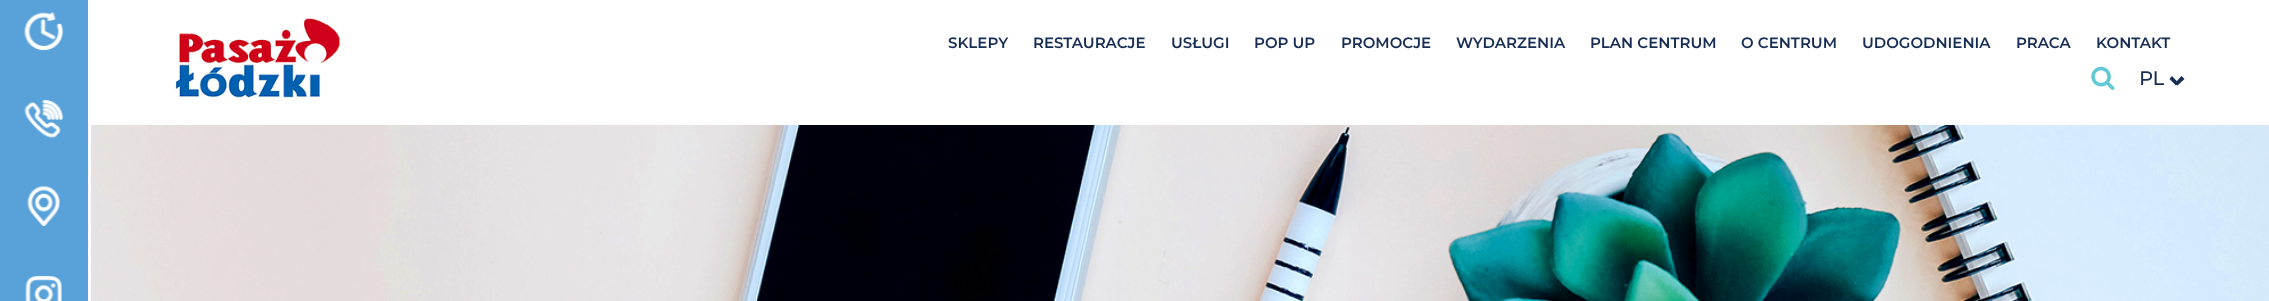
(async () => {
    const canvas = document.querySelector("canvas");
    canvas.width = 2269;
    canvas.height = 301;
    const context = canvas.getContext("2d");
    context.miterLimit = 4;
    context.fontKerning = "normal";
    function write(s, x, y, font, color) {
        context.font = font;
        context.fillStyle = color;
        context.fillText(s, x, y);
    }
    function block(x, y, w, h, color) {
        context.fillStyle = color;
        context.fillRect(x, y, w, h);
    }
    async function photo(src, x, y, w, h) {
        const img = new Image();
        img.src = src;
        await img.decode();
        context.drawImage(img, x, y, w, h);
    }

    block(0, 0, 2269, 301, "rgb(255, 255, 255)");
    block(0, 0, 88, 301, "rgb(88, 161, 217)");
    await photo("media/1.png", 24, 12, 40, 39);
    await photo("media/2.png", 24, 100, 40, 38);
    await photo("media/3.png", 27, 186, 33, 41);
    await photo("media/4.png", 25, 276, 37, 25);
    await photo("media/5.png", 175, 18, 165, 80);
    write("SKLEPY", 948, 48, "600 15px Montserrat", "rgb(23, 45, 84)");
    write("RESTAURACJE", 1033, 48, "600 15px Montserrat", "rgb(23, 45, 84)");
    write("USŁUGI", 1171, 48, "600 15px Montserrat", "rgb(23, 45, 84)");
    write("POP UP", 1254, 48, "600 15px Montserrat", "rgb(23, 45, 84)");
    write("PROMOCJE", 1341, 48, "600 15px Montserrat", "rgb(23, 45, 84)");
    write("WYDARZENIA", 1456, 48, "600 15px Montserrat", "rgb(23, 45, 84)");
    write("PLAN CENTRUM", 1590, 48, "600 15px Montserrat", "rgb(23, 45, 84)");
    write("O CENTRUM", 1741, 48, "600 15px Montserrat", "rgb(23, 45, 84)");
    write("UDOGODNIENIA", 1862, 48, "600 15px Montserrat", "rgb(23, 45, 84)");
    write("PRACA", 2016, 48, "600 15px Montserrat", "rgb(23, 45, 84)");
    write("KONTAKT", 2096, 48, "600 15px Montserrat", "rgb(23, 45, 84)");
    await photo("media/6.png", 2091, 66, 24, 24);
    write("PL", 2139, 85, "bold 19px Montserrat", "rgb(23, 45, 84)");
    context.beginPath();
    context.moveTo(2181.5, 76);
    context.lineTo(2184.5, 79);
    context.lineTo(2177.5, 85.5);
    context.lineTo(2175, 83);
    context.closePath();
    context.fill();
    context.beginPath();
    context.moveTo(2172, 76);
    context.lineTo(2178.5, 83);
    context.lineTo(2176, 85.5);
    context.lineTo(2169.5, 79);
    context.closePath();
    context.fill();
    await photo("media/7.png", 90, 125, 2179, 176);
})();
